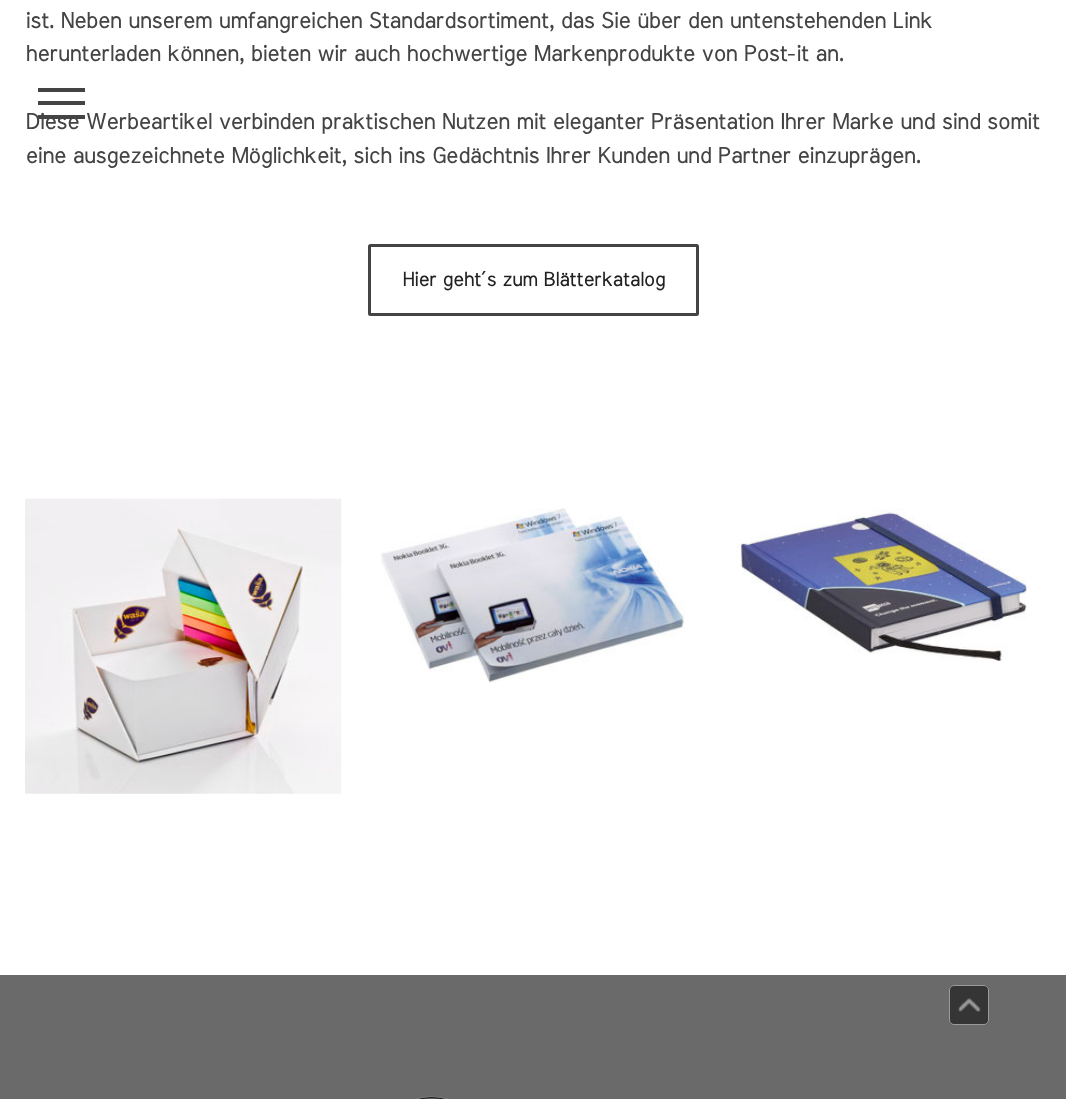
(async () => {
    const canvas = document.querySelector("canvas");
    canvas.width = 1066;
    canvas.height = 1099;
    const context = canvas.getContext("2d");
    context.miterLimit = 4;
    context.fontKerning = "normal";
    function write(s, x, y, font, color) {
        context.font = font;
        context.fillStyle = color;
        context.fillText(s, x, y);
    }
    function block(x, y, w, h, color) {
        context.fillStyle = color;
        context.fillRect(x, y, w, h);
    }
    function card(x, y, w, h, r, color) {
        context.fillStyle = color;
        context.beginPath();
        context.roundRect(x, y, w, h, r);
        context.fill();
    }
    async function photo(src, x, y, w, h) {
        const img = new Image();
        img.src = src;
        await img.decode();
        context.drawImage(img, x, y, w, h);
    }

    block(0, 0, 1066, 1099, "rgb(255, 255, 255)");
    write("ist. Neben unserem umfangreichen Standardsortiment, das Sie über den untenstehenden Link", 25, 28, "22.5px Meera Inimai", "rgb(68, 68, 68)");
    write("herunterladen können, bieten wir auch hochwertige Markenprodukte von Post-it an.", 25, 61, "22.5px Meera Inimai", "rgb(68, 68, 68)");
    write("Diese Werbeartikel verbinden praktischen Nutzen mit eleganter Präsentation Ihrer Marke und sind somit", 25, 129, "22.5px Meera Inimai", "rgb(68, 68, 68)");
    write("eine ausgezeichnete Möglichkeit, sich ins Gedächtnis Ihrer Kunden und Partner einzuprägen.", 25, 163, "22.5px Meera Inimai", "rgb(68, 68, 68)");
    context.beginPath();
    context.roundRect(369.5, 245.5, 328, 69, 1);
    context.strokeStyle = "rgb(68, 68, 68)";
    context.lineWidth = 3;
    context.stroke();
    write("Hier geht´s zum Blätterkatalog", 402, 286, "20px Meera Inimai", "rgb(34, 34, 34)");
    await photo("media/1.png", 25, 498, 317, 296);
    await photo("media/2.png", 381, 508, 304, 175);
    await photo("media/3.png", 735, 508, 292, 154);
    block(38, 101, 47, 4, "rgb(68, 68, 68)");
    block(38, 88, 47, 4, "rgb(68, 68, 68)");
    block(38, 115, 47, 4, "rgb(68, 68, 68)");
    block(0, 975, 1066, 124, "rgb(106, 106, 106)");
    await photo("media/4.png", 416, 1096, 32, 3);
    card(949, 985, 40, 40, 5, "rgb(53, 53, 53)");
    context.beginPath();
    context.roundRect(949.5, 985.5, 39, 39, 4.5);
    context.strokeStyle = "rgba(255, 255, 255, 0.5)";
    context.lineWidth = 1;
    context.stroke();
    await photo("media/5.png", 958, 998, 23, 14);
})();
